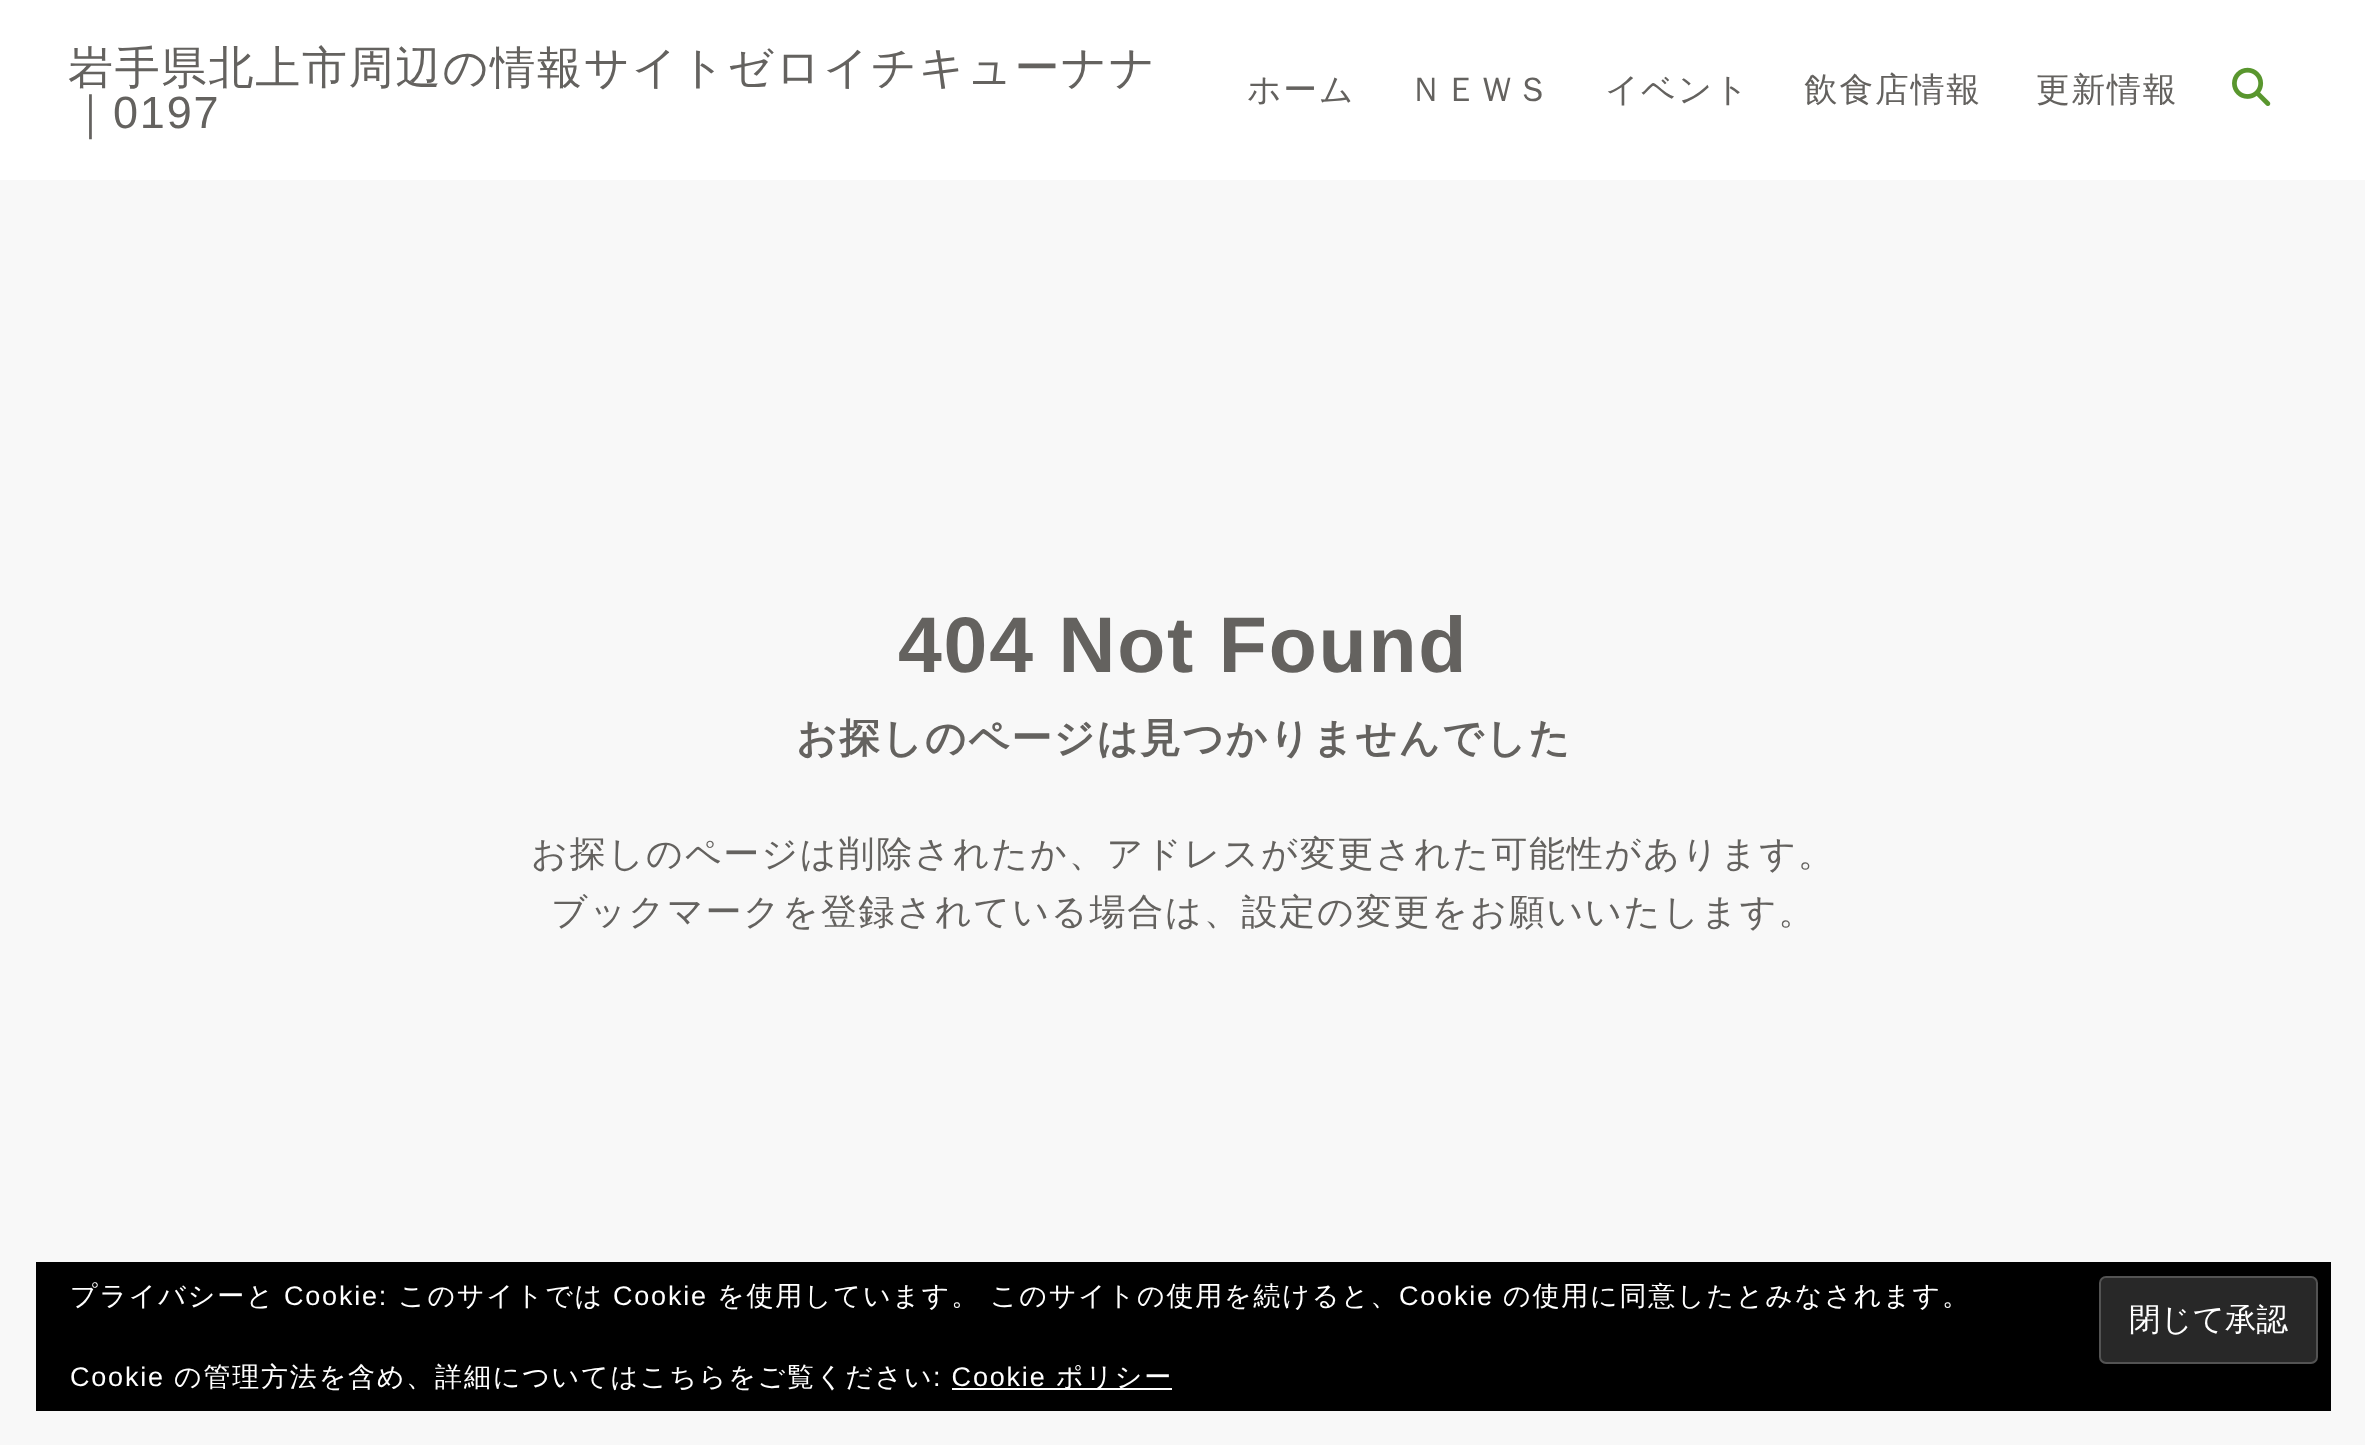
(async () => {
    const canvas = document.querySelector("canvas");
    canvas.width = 2365;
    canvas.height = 1445;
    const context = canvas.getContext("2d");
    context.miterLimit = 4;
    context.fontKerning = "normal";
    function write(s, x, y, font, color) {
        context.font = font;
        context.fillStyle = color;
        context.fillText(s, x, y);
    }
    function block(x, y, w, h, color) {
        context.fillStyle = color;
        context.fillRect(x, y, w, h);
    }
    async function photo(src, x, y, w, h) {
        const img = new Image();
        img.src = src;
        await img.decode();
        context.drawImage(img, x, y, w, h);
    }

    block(0, 0, 2365, 1445, "rgb(248, 248, 248)");
    block(0, 0, 2365, 180, "rgb(255, 255, 255)");
    context.letterSpacing = "1.8px";
    write("岩手県北上市周辺の情報サイトゼロイチキューナナ", 68, 83, "500 45px WenQuanYi Zen Hei", "rgb(100, 98, 95)");
    write("｜", 68, 128, "500 45px WenQuanYi Zen Hei", "rgb(100, 98, 95)");
    write("0197", 113, 128, "45px Liberation Sans", "rgb(100, 98, 95)");
    write("ホーム", 1247, 101, "500 33.75px WenQuanYi Zen Hei", "rgb(100, 98, 95)");
    write("ＮＥＷＳ", 1409, 101, "500 33.75px WenQuanYi Zen Hei", "rgb(100, 98, 95)");
    write("イベント", 1605, 101, "500 33.75px WenQuanYi Zen Hei", "rgb(100, 98, 95)");
    write("飲食店情報", 1804, 101, "500 33.75px WenQuanYi Zen Hei", "rgb(100, 98, 95)");
    write("更新情報", 2036, 101, "500 33.75px WenQuanYi Zen Hei", "rgb(100, 98, 95)");
    await photo("media/1.png", 2232, 67, 39, 39);
    write("404 Not Found", 898, 672, "bold 78.75px Liberation Sans", "rgb(100, 98, 95)");
    write("お探しのページは見つかりませんでした", 796, 752, "bold 40.5px WenQuanYi Zen Hei", "rgb(100, 98, 95)");
    write("お探しのページは削除されたか、アドレスが変更された可能性があります。", 531, 866, "500 36px WenQuanYi Zen Hei", "rgb(100, 98, 95)");
    write("ブックマークを登録されている場合は、設定の変更をお願いいたします。", 551, 924, "500 36px WenQuanYi Zen Hei", "rgb(100, 98, 95)");
    block(36, 1262, 2295, 149, "rgb(0, 0, 0)");
    write("プライバシーと", 70, 1305, "500 27px WenQuanYi Zen Hei", "rgb(255, 255, 255)");
    write("Cookie:", 284, 1305, "27px Liberation Sans", "rgb(255, 255, 255)");
    write("このサイトでは", 398, 1305, "500 27px WenQuanYi Zen Hei", "rgb(255, 255, 255)");
    write("Cookie", 613, 1305, "27px Liberation Sans", "rgb(255, 255, 255)");
    write("を使用しています。 このサイトの使用を続けると、", 717, 1305, "500 27px WenQuanYi Zen Hei", "rgb(255, 255, 255)");
    write("Cookie", 1399, 1305, "27px Liberation Sans", "rgb(255, 255, 255)");
    write("の使用に同意したとみなされます。", 1503, 1305, "500 27px WenQuanYi Zen Hei", "rgb(255, 255, 255)");
    context.fillStyle = "rgb(40, 40, 40)";
    context.beginPath();
    context.roundRect(2100, 1277, 217, 86, 6);
    context.fill();
    context.strokeStyle = "rgb(83, 83, 83)";
    context.lineWidth = 2;
    context.stroke();
    context.letterSpacing = "0px";
    write("閉じて承認", 2129, 1330, "500 31.5px WenQuanYi Zen Hei", "rgb(255, 255, 255)");
    context.letterSpacing = "1.8px";
    write("Cookie", 70, 1386, "27px Liberation Sans", "rgb(255, 255, 255)");
    write("の管理方法を含め、詳細についてはこちらをご覧ください", 174, 1386, "500 27px WenQuanYi Zen Hei", "rgb(255, 255, 255)");
    write(": Cookie", 933, 1386, "27px Liberation Sans", "rgb(255, 255, 255)");
    block(952, 1388, 220, 2, "rgb(255, 255, 255)");
    write("ポリシー", 1056, 1386, "500 27px WenQuanYi Zen Hei", "rgb(255, 255, 255)");
})();
